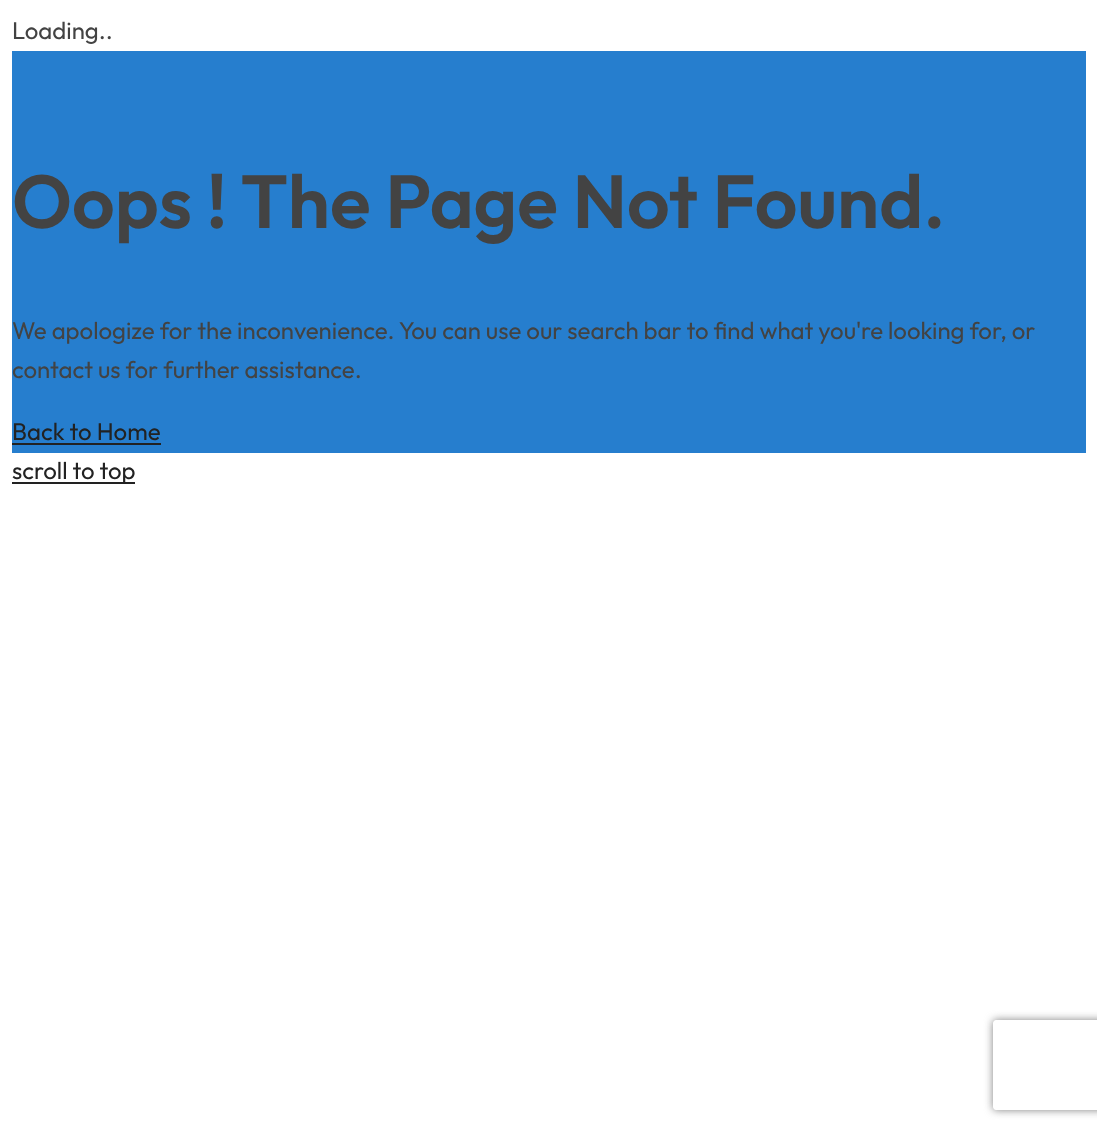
(async () => {
    const canvas = document.querySelector("canvas");
    canvas.width = 1097;
    canvas.height = 1131;
    const context = canvas.getContext("2d");
    context.miterLimit = 4;
    context.fontKerning = "normal";
    function write(s, x, y, font, color) {
        context.font = font;
        context.fillStyle = color;
        context.fillText(s, x, y);
    }
    function block(x, y, w, h, color) {
        context.fillStyle = color;
        context.fillRect(x, y, w, h);
    }

    block(0, 0, 1097, 1131, "rgb(255, 255, 255)");
    write("Loading..", 12, 39, "24px Outfit", "rgb(67, 67, 67)");
    block(12, 51, 1074, 402, "rgb(38, 126, 206)");
    write("Oops ! The Page Not Found.", 12, 228, "600 75px Outfit", "rgb(67, 67, 67)");
    write("We apologize for the inconvenience. You can use our search bar to find what you're looking for, or", 12, 339, "24px Outfit", "rgb(67, 67, 67)");
    write("contact us for further assistance.", 12, 378, "24px Outfit", "rgb(67, 67, 67)");
    write("Back to Home", 12, 440, "24px Outfit", "rgb(34, 34, 34)");
    block(12, 443, 149, 2, "rgb(34, 34, 34)");
    block(12, 482, 123, 2, "rgb(34, 34, 34)");
    write("scroll to top", 12, 479, "24px Outfit", "rgb(34, 34, 34)");
    context.save();
    context.beginPath();
    context.moveTo(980, 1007);
    context.lineTo(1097, 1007);
    context.lineTo(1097, 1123);
    context.lineTo(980, 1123);
    context.closePath();
    context.moveTo(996, 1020);
    context.lineTo(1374, 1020);
    context.bezierCurveTo(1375.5, 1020, 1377, 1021.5, 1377, 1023);
    context.lineTo(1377, 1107);
    context.bezierCurveTo(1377, 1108.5, 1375.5, 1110, 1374, 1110);
    context.lineTo(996, 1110);
    context.bezierCurveTo(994.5, 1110, 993, 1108.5, 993, 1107);
    context.lineTo(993, 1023);
    context.bezierCurveTo(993, 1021.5, 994.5, 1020, 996, 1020);
    context.closePath();
    context.clip("evenodd");
    context.fillStyle = "rgb(128, 128, 128)";
    context.filter = "blur(4px)";
    context.beginPath();
    context.roundRect(993, 1020, 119, 90, 3);
    context.fill();
    context.filter = "none";
    context.restore();
})();
